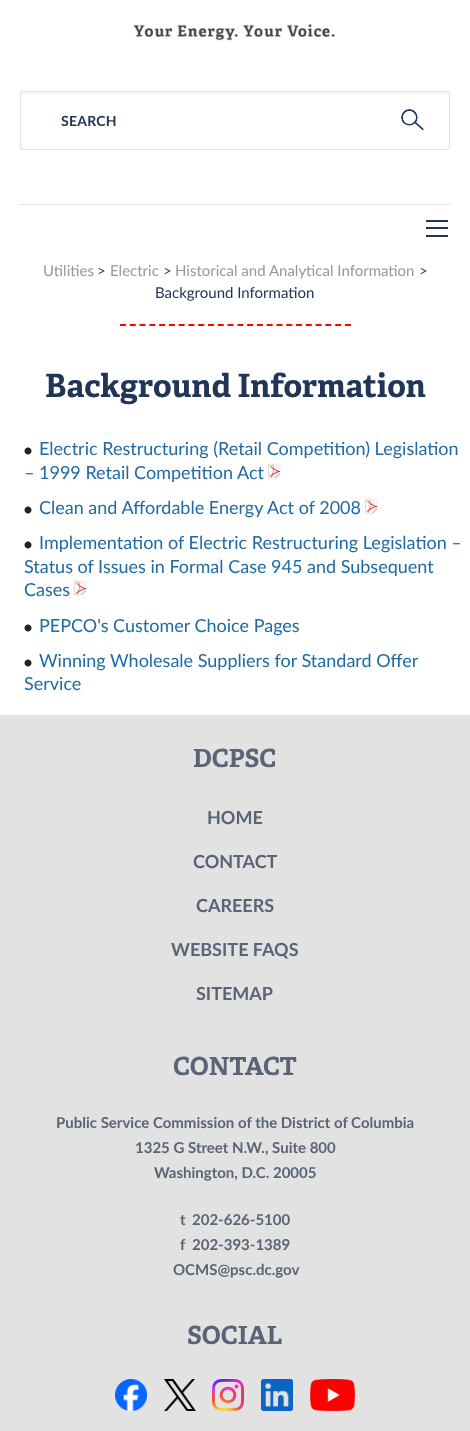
(async () => {
    const canvas = document.querySelector("canvas");
    canvas.width = 470;
    canvas.height = 1431;
    const context = canvas.getContext("2d");
    context.miterLimit = 4;
    context.fontKerning = "normal";
    function write(s, x, y, font, color) {
        context.font = font;
        context.fillStyle = color;
        context.fillText(s, x, y);
    }
    function block(x, y, w, h, color) {
        context.fillStyle = color;
        context.fillRect(x, y, w, h);
    }
    async function photo(src, x, y, w, h) {
        const img = new Image();
        img.src = src;
        await img.decode();
        context.drawImage(img, x, y, w, h);
    }

    block(0, 0, 470, 1431, "rgb(255, 255, 255)");
    await photo("media/1.png", 133, 24, 202, 17);
    context.fillStyle = "rgb(247, 247, 247)";
    context.beginPath();
    context.moveTo(22, 94);
    context.lineTo(449, 94);
    context.lineTo(449, 92);
    context.lineTo(22, 92);
    context.bezierCurveTo(21, 92, 21, 94, 21, 95);
    context.closePath();
    context.fill();
    context.beginPath();
    context.roundRect(20.5, 91.5, 429, 58, 1.5);
    context.strokeStyle = "rgb(227, 226, 226)";
    context.stroke();
    context.letterSpacing = "0.25px";
    write("SEARCH", 61, 126, "bold 14px Lato", "rgb(33, 53, 86)");
    await photo("media/2.png", 401, 109, 23, 22);
    block(20, 204, 430, 1, "rgb(227, 226, 226)");
    block(426, 220, 22, 2, "rgb(33, 53, 86)");
    block(426, 227, 22, 2, "rgb(33, 53, 86)");
    block(426, 235, 22, 2, "rgb(33, 53, 86)");
    context.letterSpacing = "0px";
    write("Utilities", 43, 276, "15px Lato", "rgb(150, 151, 153)");
    write(">", 97, 276, "15px Lato", "rgb(67, 67, 67)");
    write("Electric", 110, 276, "15px Lato", "rgb(150, 151, 153)");
    write(">", 163, 276, "15px Lato", "rgb(67, 67, 67)");
    write("Historical and Analytical Information", 175, 276, "15px Lato", "rgb(150, 151, 153)");
    write(">", 419, 276, "15px Lato", "rgb(67, 67, 67)");
    write("Background Information", 155, 298, "15px Lato", "rgb(33, 53, 86)");
    context.beginPath();
    context.moveTo(120, 325);
    context.lineTo(351, 325);
    context.strokeStyle = "rgb(255, 0, 0)";
    context.lineWidth = 2;
    context.setLineDash([6, 3.78]);
    context.stroke();
    write("Background Information", 45, 397, "bold 32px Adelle", "rgb(33, 53, 86)");
    await photo("media/3.png", 24, 447, 8, 8);
    write("Electric Restructuring (Retail Competition) Legislation", 39, 455, "18px Lato", "rgb(32, 107, 163)");
    write("– 1999 Retail Competition Act", 24, 479, "18px Lato", "rgb(32, 107, 163)");
    await photo("media/4.png", 268, 463, 13, 16);
    await photo("media/3.png", 24, 506, 8, 8);
    write("Clean and Affordable Energy Act of 2008", 39, 514, "18px Lato", "rgb(32, 107, 163)");
    await photo("media/4.png", 365, 498, 13, 16);
    await photo("media/3.png", 24, 541, 8, 8);
    write("Implementation of Electric Restructuring Legislation –", 39, 549, "18px Lato", "rgb(32, 107, 163)");
    write("Status of Issues in Formal Case 945 and Subsequent", 24, 573, "18px Lato", "rgb(32, 107, 163)");
    write("Cases", 24, 596, "18px Lato", "rgb(32, 107, 163)");
    await photo("media/4.png", 74, 580, 13, 16);
    await photo("media/3.png", 24, 624, 8, 8);
    write("PEPCO's Customer Choice Pages", 39, 632, "18px Lato", "rgb(32, 107, 163)");
    await photo("media/3.png", 24, 659, 8, 8);
    write("Winning Wholesale Suppliers for Standard Offer", 39, 667, "18px Lato", "rgb(32, 107, 163)");
    write("Service", 24, 690, "18px Lato", "rgb(32, 107, 163)");
    block(0, 715, 470, 716, "rgb(227, 226, 226)");
    write("DCPSC", 193, 767, "bold 25px Adelle", "rgb(89, 101, 119)");
    write("HOME", 207, 824, "bold 18px Lato", "rgb(89, 101, 119)");
    write("CONTACT", 193, 868, "bold 18px Lato", "rgb(89, 101, 119)");
    write("CAREERS", 196, 912, "bold 18px Lato", "rgb(89, 101, 119)");
    write("WEBSITE FAQS", 171, 956, "bold 18px Lato", "rgb(89, 101, 119)");
    write("SITEMAP", 196, 1000, "bold 18px Lato", "rgb(89, 101, 119)");
    write("CONTACT", 173, 1075, "bold 25px Adelle", "rgb(89, 101, 119)");
    write("Public Service Commission of the District of Columbia", 56, 1128, "bold 15px Lato", "rgb(89, 101, 119)");
    write("1325 G Street N.W., Suite 800", 135, 1153, "bold 15px Lato", "rgb(89, 101, 119)");
    write("Washington, D.C. 20005", 154, 1178, "bold 15px Lato", "rgb(89, 101, 119)");
    write("t", 180, 1225, "bold 15px Lato", "rgb(89, 101, 119)");
    write("202-626-5100", 192, 1225, "bold 15px Lato", "rgb(89, 101, 119)");
    write("f", 180, 1250, "bold 15px Lato", "rgb(89, 101, 119)");
    write("202-393-1389", 192, 1250, "bold 15px Lato", "rgb(89, 101, 119)");
    write("OCMS@psc.dc.gov", 173, 1275, "bold 15px Lato", "rgb(89, 101, 119)");
    write("SOCIAL", 187, 1344, "bold 25px Adelle", "rgb(89, 101, 119)");
    await photo("media/5.png", 115, 1379, 32, 32);
    await photo("media/6.png", 164, 1379, 32, 32);
    await photo("media/7.png", 212, 1379, 32, 32);
    await photo("media/8.png", 261, 1379, 32, 32);
    await photo("media/9.png", 310, 1379, 45, 32);
})();
